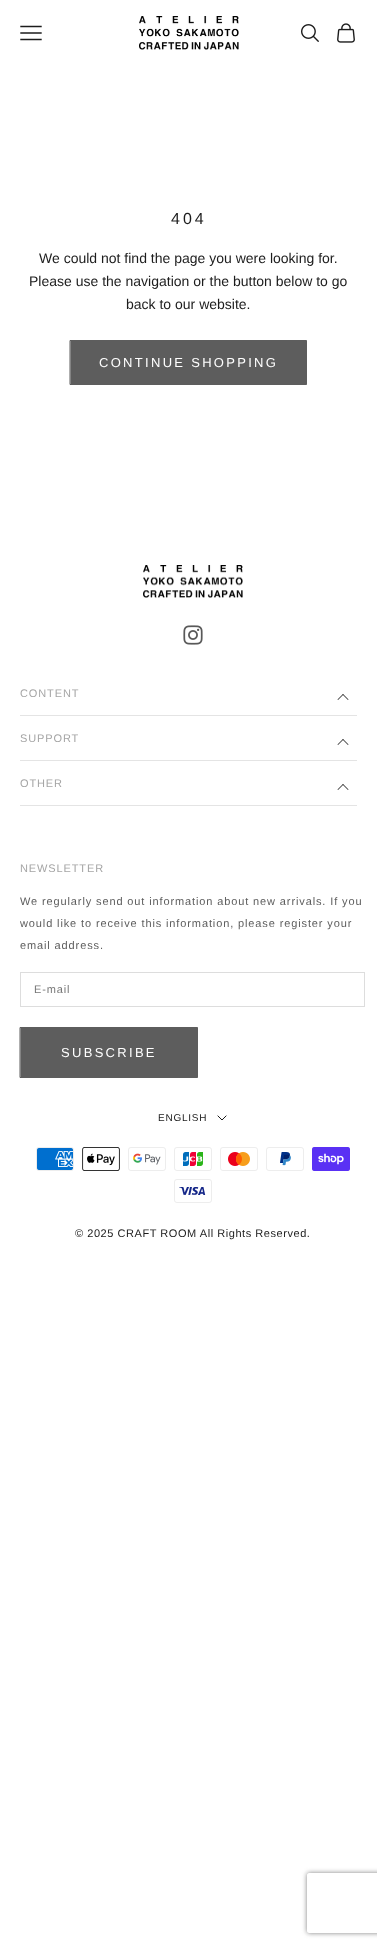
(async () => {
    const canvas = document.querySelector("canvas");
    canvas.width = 377;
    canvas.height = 1947;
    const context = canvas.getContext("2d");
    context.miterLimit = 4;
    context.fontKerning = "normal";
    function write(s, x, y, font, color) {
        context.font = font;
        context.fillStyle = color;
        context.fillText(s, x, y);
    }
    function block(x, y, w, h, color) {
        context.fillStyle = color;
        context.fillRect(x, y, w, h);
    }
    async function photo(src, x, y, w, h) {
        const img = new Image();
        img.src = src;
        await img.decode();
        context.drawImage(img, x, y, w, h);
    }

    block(0, 0, 377, 1947, "rgb(255, 255, 255)");
    context.beginPath();
    context.moveTo(21, 39.5);
    context.lineTo(41, 39.5);
    context.moveTo(21, 33);
    context.lineTo(41, 33);
    context.moveTo(21, 26.5);
    context.lineTo(41, 26.5);
    context.strokeStyle = "rgb(28, 28, 28)";
    context.lineWidth = 1.4;
    context.lineCap = "square";
    context.stroke();
    await photo("media/1.png", 139, 16, 100, 34);
    await photo("media/2.png", 301, 24, 18, 18);
    await photo("media/3.png", 337, 23, 18, 20);
    context.letterSpacing = "3px";
    write("404", 171, 224, "16px Liberation Sans", "rgb(28, 28, 28)");
    context.letterSpacing = "0px";
    write("We could not find the page you were looking for.", 39, 263, "14px Liberation Sans", "rgb(28, 28, 28)");
    write("Please use the navigation or the button below to go", 29, 286, "14px Liberation Sans", "rgb(28, 28, 28)");
    write("back to our website.", 126, 309, "14px Liberation Sans", "rgb(28, 28, 28)");
    context.fillStyle = "rgb(93, 93, 93)";
    context.beginPath();
    context.rect(70.5, 340.5, 236, 44);
    context.fill();
    context.strokeStyle = "rgb(93, 93, 93)";
    context.lineWidth = 1;
    context.stroke();
    context.letterSpacing = "2.3px";
    write("CONTINUE SHOPPING", 99, 367, "13px Liberation Sans", "rgb(255, 255, 255)");
    await photo("media/4.png", 143, 565, 100, 33);
    await photo("media/5.png", 183, 625, 20, 20);
    block(20, 715, 337, 1, "rgb(228, 228, 228)");
    context.letterSpacing = "0.88px";
    write("CONTENT", 20, 697, "11px Liberation Sans", "rgb(165, 165, 165)");
    context.fillStyle = "rgb(28, 28, 28)";
    context.beginPath();
    context.moveTo(337.5, 699.5);
    context.lineTo(343, 694);
    context.lineTo(343.5, 694.5);
    context.lineTo(338, 700);
    context.closePath();
    context.fill();
    context.beginPath();
    context.moveTo(342.5, 694.5);
    context.lineTo(343, 694);
    context.lineTo(348.5, 699.5);
    context.lineTo(348, 700);
    context.closePath();
    context.fill();
    block(20, 760, 337, 1, "rgb(228, 228, 228)");
    write("SUPPORT", 20, 742, "11px Liberation Sans", "rgb(165, 165, 165)");
    context.fillStyle = "rgb(28, 28, 28)";
    context.beginPath();
    context.moveTo(337.5, 744.5);
    context.lineTo(343, 739);
    context.lineTo(343.5, 739.5);
    context.lineTo(338, 745);
    context.closePath();
    context.fill();
    context.beginPath();
    context.moveTo(342.5, 739.5);
    context.lineTo(343, 739);
    context.lineTo(348.5, 744.5);
    context.lineTo(348, 745);
    context.closePath();
    context.fill();
    block(20, 805, 337, 1, "rgb(228, 228, 228)");
    write("OTHER", 20, 787, "11px Liberation Sans", "rgb(165, 165, 165)");
    context.fillStyle = "rgb(28, 28, 28)";
    context.beginPath();
    context.moveTo(337.5, 789.5);
    context.lineTo(343, 784);
    context.lineTo(343.5, 784.5);
    context.lineTo(338, 790);
    context.closePath();
    context.fill();
    context.beginPath();
    context.moveTo(342.5, 784.5);
    context.lineTo(343, 784);
    context.lineTo(348.5, 789.5);
    context.lineTo(348, 790);
    context.closePath();
    context.fill();
    write("NEWSLETTER", 20, 872, "11px Liberation Sans", "rgb(165, 165, 165)");
    write("We regularly send out information about new arrivals. If you", 20, 905, "11px Liberation Sans", "rgb(93, 93, 93)");
    write("would like to receive this information, please register your", 20, 927, "11px Liberation Sans", "rgb(93, 93, 93)");
    write("email address.", 20, 949, "11px Liberation Sans", "rgb(93, 93, 93)");
    context.strokeStyle = "rgb(221, 221, 221)";
    context.strokeRect(20.5, 972.5, 344, 34);
    write("E-mail", 34, 993, "11px Liberation Sans", "rgb(119, 119, 119)");
    context.fillStyle = "rgb(93, 93, 93)";
    context.beginPath();
    context.rect(20.5, 1027.5, 177, 50);
    context.fill();
    context.strokeStyle = "rgb(93, 93, 93)";
    context.stroke();
    context.letterSpacing = "2.3px";
    write("SUBSCRIBE", 61, 1057, "13px Liberation Sans", "rgb(255, 255, 255)");
    context.letterSpacing = "0.75px";
    write("ENGLISH", 158, 1121, "10px Liberation Sans", "rgb(28, 28, 28)");
    context.beginPath();
    context.moveTo(218, 1116);
    context.lineTo(222, 1120);
    context.lineTo(226, 1116);
    context.strokeStyle = "rgb(28, 28, 28)";
    context.stroke();
    await photo("media/6.png", 36, 1147, 38, 24);
    await photo("media/7.png", 82, 1147, 38, 24);
    await photo("media/8.png", 128, 1147, 38, 24);
    await photo("media/9.png", 174, 1147, 38, 24);
    await photo("media/10.png", 220, 1147, 38, 24);
    await photo("media/11.png", 266, 1147, 38, 24);
    await photo("media/12.png", 312, 1147, 38, 24);
    await photo("media/13.png", 174, 1179, 38, 24);
    context.letterSpacing = "0.55px";
    write("© 2025 CRAFT ROOM All Rights Reserved.", 75, 1237, "11px Liberation Sans", "rgb(28, 28, 28)");
    context.save();
    context.beginPath();
    context.moveTo(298, 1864);
    context.lineTo(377, 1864);
    context.lineTo(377, 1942);
    context.lineTo(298, 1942);
    context.closePath();
    context.moveTo(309, 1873);
    context.lineTo(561, 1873);
    context.bezierCurveTo(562, 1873, 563, 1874, 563, 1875);
    context.lineTo(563, 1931);
    context.bezierCurveTo(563, 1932, 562, 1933, 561, 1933);
    context.lineTo(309, 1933);
    context.bezierCurveTo(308, 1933, 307, 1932, 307, 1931);
    context.lineTo(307, 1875);
    context.bezierCurveTo(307, 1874, 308, 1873, 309, 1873);
    context.closePath();
    context.clip("evenodd");
    context.fillStyle = "rgb(128, 128, 128)";
    context.filter = "blur(2.5px)";
    context.beginPath();
    context.roundRect(307, 1873, 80, 60, 2);
    context.fill();
    context.filter = "none";
    context.restore();
})();
